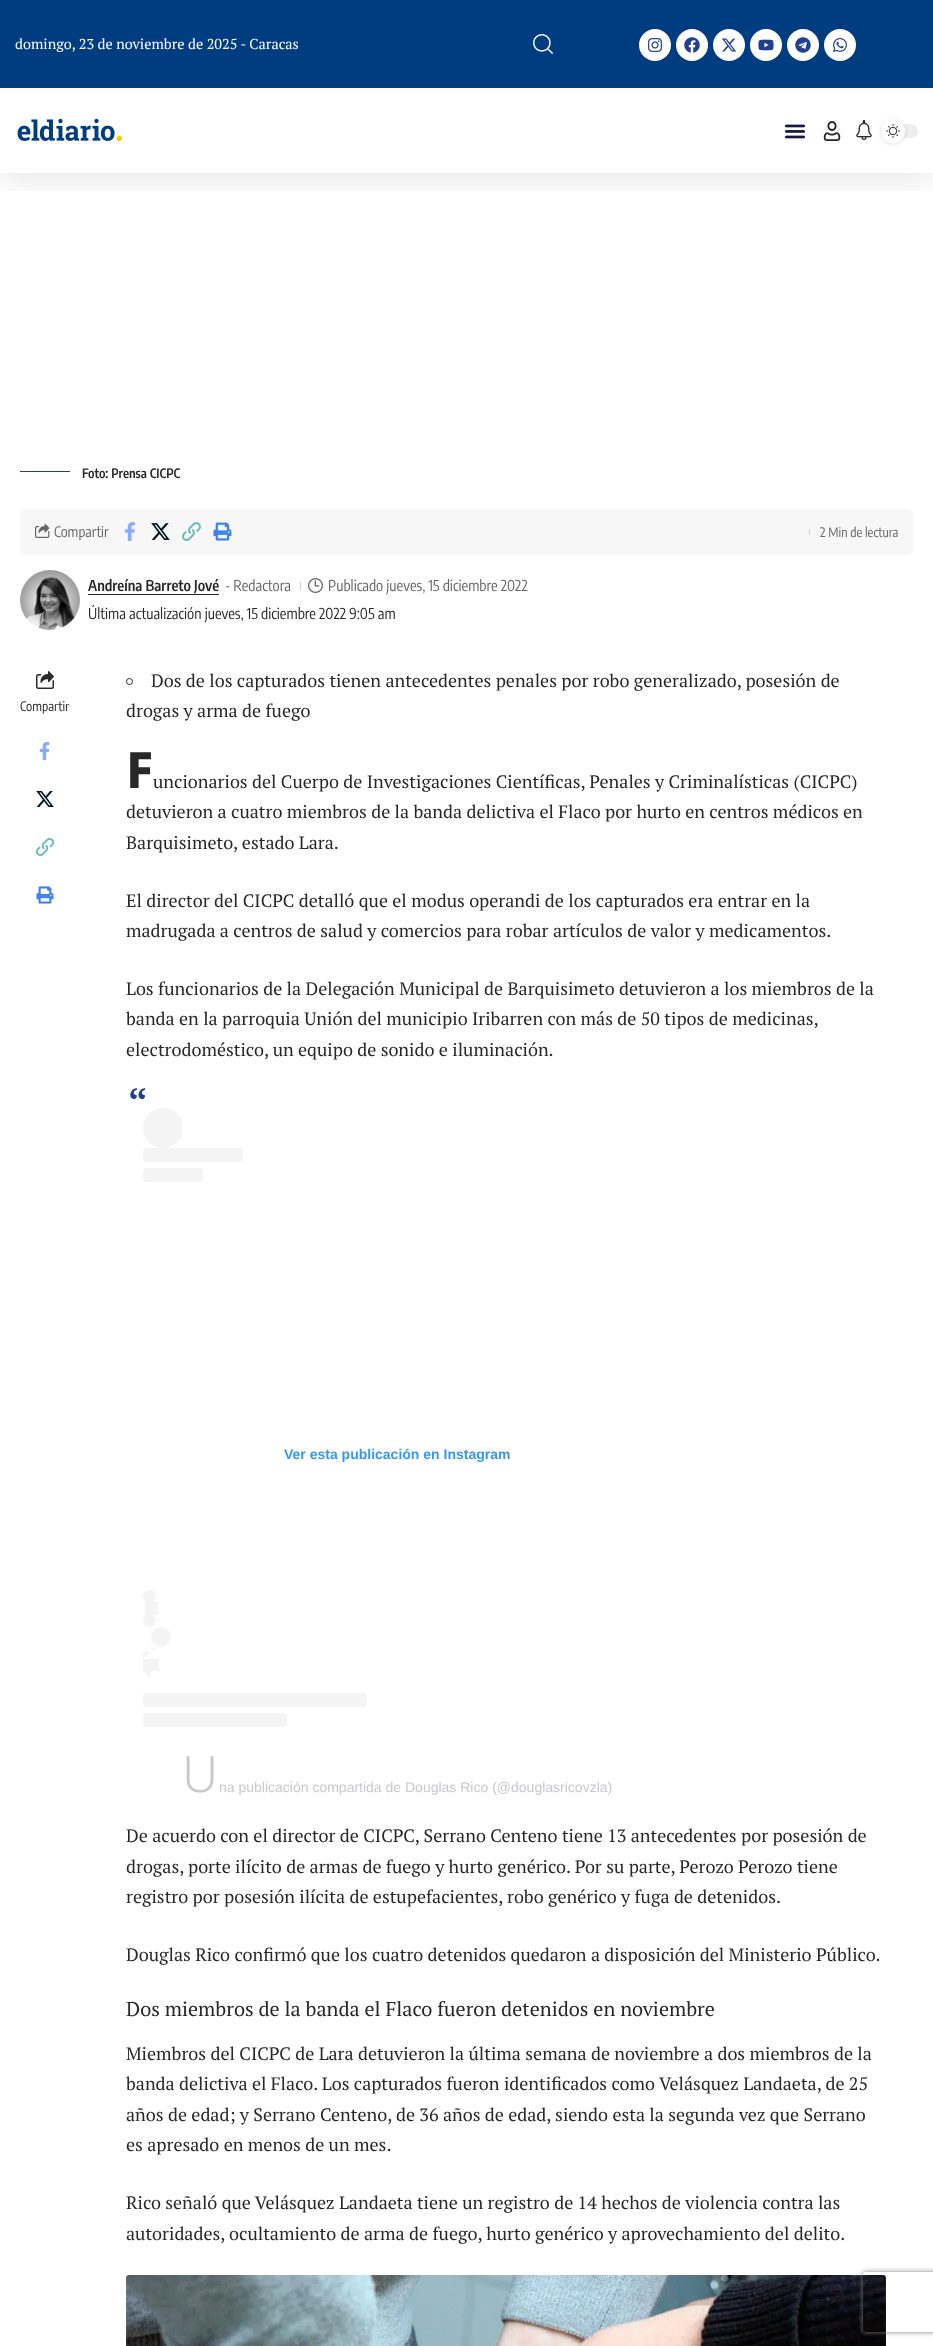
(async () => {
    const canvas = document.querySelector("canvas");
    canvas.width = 933;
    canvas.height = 2346;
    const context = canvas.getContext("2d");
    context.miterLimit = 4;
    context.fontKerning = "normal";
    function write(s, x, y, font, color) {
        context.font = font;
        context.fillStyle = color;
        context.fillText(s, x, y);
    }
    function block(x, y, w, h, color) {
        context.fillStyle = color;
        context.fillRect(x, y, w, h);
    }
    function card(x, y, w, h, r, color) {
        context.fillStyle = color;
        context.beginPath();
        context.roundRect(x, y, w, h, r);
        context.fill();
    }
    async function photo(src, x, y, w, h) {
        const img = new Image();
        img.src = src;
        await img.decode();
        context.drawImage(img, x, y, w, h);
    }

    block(0, 0, 933, 2346, "rgb(255, 255, 255)");
    context.save();
    context.beginPath();
    context.rect(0, 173, 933, 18);
    context.clip();
    context.fillStyle = "rgba(0, 0, 0, 0.1)";
    context.filter = "blur(15px)";
    context.beginPath();
    context.rect(0, 5, 933, 173);
    context.fill();
    context.filter = "none";
    context.restore();
    block(0, 0, 933, 88, "rgb(0, 61, 128)");
    write("domingo, 23 de noviembre de 2025 - Caracas", 15, 49, "14.4px PT Serif", "rgb(255, 255, 255)");
    await photo("media/1.png", 533, 34, 20, 20);
    context.beginPath();
    context.arc(655, 45, 16, 0, Math.PI * 2);
    context.fill();
    await photo("media/2.png", 648, 38, 14, 14);
    context.beginPath();
    context.arc(692, 45, 16, 0, Math.PI * 2);
    context.fill();
    await photo("media/3.png", 684, 37, 16, 16);
    context.beginPath();
    context.arc(729, 45, 16, 0, Math.PI * 2);
    context.fill();
    await photo("media/4.png", 722, 38, 15, 14);
    context.beginPath();
    context.arc(766, 45, 16, 0, Math.PI * 2);
    context.fill();
    await photo("media/5.png", 758, 39, 16, 12);
    context.beginPath();
    context.arc(803, 45, 16, 0, Math.PI * 2);
    context.fill();
    await photo("media/6.png", 795, 37, 16, 16);
    context.beginPath();
    context.arc(840, 45, 16, 0, Math.PI * 2);
    context.fill();
    await photo("media/7.png", 833, 38, 14, 14);
    await photo("media/8.png", 17, 118, 105, 24);
    await photo("media/9.png", 784, 124, 22, 15);
    await photo("media/10.png", 823, 121, 18, 20);
    await photo("media/11.png", 856, 120, 16, 20);
    card(881, 124, 37, 14, 7, "rgb(237, 237, 237)");
    context.fillStyle = "rgba(0, 0, 0, 0.12)";
    context.filter = "blur(2px)";
    context.beginPath();
    context.roundRect(881, 120, 24, 24, 12);
    context.fill();
    context.filter = "none";
    context.fillStyle = "rgb(255, 255, 255)";
    context.beginPath();
    context.arc(893, 131, 12, 0, Math.PI * 2);
    context.fill();
    await photo("media/12.png", 886, 124, 14, 14);
    block(20, 471, 50, 1, "rgb(32, 64, 142)");
    write("Foto: Prensa CICPC", 82, 478, "600 13px Encode Sans Condensed", "rgb(40, 40, 40)");
    card(20, 509, 893, 46, 5, "rgb(247, 247, 247)");
    await photo("media/13.png", 35, 523, 15, 15);
    write("Compartir", 54, 537, "14.4px Encode Sans Condensed", "rgb(102, 102, 102)");
    await photo("media/14.png", 124, 522, 11, 19);
    await photo("media/15.png", 151, 523, 19, 17);
    await photo("media/16.png", 182, 522, 19, 19);
    await photo("media/17.png", 213, 522, 19, 19);
    block(809, 529, 1, 6, "rgb(211, 211, 211)");
    write("2 Min de lectura", 820, 537, "13px Encode Sans Condensed", "rgb(102, 102, 102)");
    await photo("media/18.png", 20, 570, 60, 60);
    write("Andreína Barreto Jové", 88, 591, "600 14.95px Encode Sans Condensed", "rgb(40, 40, 40)");
    block(88, 594, 131, 1, "rgb(40, 40, 40)");
    write("- Redactora", 225, 591, "14.95px Encode Sans Condensed", "rgb(102, 102, 102)");
    block(300, 582, 1, 8, "rgb(209, 209, 209)");
    await photo("media/19.png", 308, 578, 15, 15);
    write("Publicado jueves, 15 diciembre 2022", 328, 591, "14.95px Encode Sans Condensed", "rgb(102, 102, 102)");
    write("Última actualización jueves, 15 diciembre 2022 9:05 am", 88, 619, "14.95px Encode Sans Condensed", "rgb(40, 40, 40)");
    await photo("media/20.png", 36, 671, 18, 18);
    write("Compartir", 20, 711, "13px Encode Sans Condensed", "rgb(40, 40, 40)");
    await photo("media/21.png", 39, 742, 11, 18);
    await photo("media/22.png", 36, 791, 18, 16);
    await photo("media/23.png", 36, 838, 18, 18);
    await photo("media/24.png", 36, 886, 18, 18);
    context.beginPath();
    context.arc(129.5, 681.5, 3, 0, Math.PI * 2);
    context.strokeStyle = "rgb(40, 40, 40)";
    context.stroke();
    write("Dos de los capturados tienen antecedentes penales por robo generalizado, posesión de", 151, 687, "18px PT Serif", "rgb(40, 40, 40)");
    write("drogas y arma de fuego", 126, 717, "18px PT Serif", "rgb(40, 40, 40)");
    write("F", 126, 788, "800 50px Noto Sans", "rgb(40, 40, 40)");
    write("uncionarios del Cuerpo de Investigaciones Científicas, Penales y Criminalísticas (CICPC)", 153, 788, "18px PT Serif", "rgb(40, 40, 40)");
    write("detuvieron a cuatro miembros de la banda delictiva el Flaco por hurto en centros médicos en", 126, 818, "18px PT Serif", "rgb(40, 40, 40)");
    write("Barquisimeto, estado Lara.", 126, 849, "18px PT Serif", "rgb(40, 40, 40)");
    write("El director del CICPC detalló que el modus operandi de los capturados era entrar en la", 126, 907, "18px PT Serif", "rgb(40, 40, 40)");
    write("madrugada a centros de salud y comercios para robar artículos de valor y medicamentos.", 126, 937, "18px PT Serif", "rgb(40, 40, 40)");
    write("Los funcionarios de la Delegación Municipal de Barquisimeto detuvieron a los miembros de la", 126, 995, "18px PT Serif", "rgb(40, 40, 40)");
    write("banda en la parroquia Unión del municipio Iribarren con más de 50 tipos de medicinas,", 126, 1025, "18px PT Serif", "rgb(40, 40, 40)");
    write("electrodoméstico, un equipo de sonido e iluminación.", 126, 1056, "18px PT Serif", "rgb(40, 40, 40)");
    write("“", 127, 1125, "45px PT Serif", "rgb(32, 64, 142)");
    context.fillStyle = "rgb(244, 244, 244)";
    context.beginPath();
    context.arc(163, 1128, 20, 0, Math.PI * 2);
    context.fill();
    card(143, 1148, 100, 14, 4, "rgb(244, 244, 244)");
    card(143, 1168, 60, 14, 4, "rgb(244, 244, 244)");
    write("Ver esta publicación en Instagram", 284, 1459, "bold 14px Liberation Sans", "rgb(56, 151, 240)");
    card(143, 1590, 13, 12, 6, "rgb(244, 244, 244)");
    block(145, 1602, 13, 13, "rgb(244, 244, 244)");
    card(143, 1615, 13, 12, 6, "rgb(244, 244, 244)");
    context.beginPath();
    context.arc(161, 1637, 10, 0, Math.PI * 2);
    context.fill();
    context.beginPath();
    context.moveTo(151, 1651);
    context.lineTo(151, 1647);
    context.lineTo(157, 1649);
    context.closePath();
    context.moveTo(143, 1651);
    context.lineTo(151, 1651);
    context.lineTo(143, 1659);
    context.closePath();
    context.fill();
    block(143, 1659, 16, 12, "rgb(244, 244, 244)");
    context.beginPath();
    context.moveTo(143, 1671);
    context.lineTo(151, 1671);
    context.lineTo(151, 1679);
    context.closePath();
    context.fill();
    card(143, 1693, 224, 14, 4, "rgb(244, 244, 244)");
    card(143, 1713, 144, 14, 4, "rgb(244, 244, 244)");
    write("U", 182, 1792, "300 50px Noto Sans", "rgb(201, 200, 205)");
    write("na publicación compartida de Douglas Rico (@douglasricovzla)", 219, 1792, "14px Liberation Sans", "rgb(201, 200, 205)");
    write("De acuerdo con el director de CICPC, Serrano Centeno tiene 13 antecedentes por posesión de", 126, 1842, "18px PT Serif", "rgb(40, 40, 40)");
    write("drogas, porte ilícito de armas de fuego y hurto genérico. Por su parte, Perozo Perozo tiene", 126, 1873, "18px PT Serif", "rgb(40, 40, 40)");
    write("registro por posesión ilícita de estupefacientes, robo genérico y fuga de detenidos.", 126, 1903, "18px PT Serif", "rgb(40, 40, 40)");
    write("Douglas Rico confirmó que los cuatro detenidos quedaron a disposición del Ministerio Público.", 126, 1961, "18px PT Serif", "rgb(40, 40, 40)");
    write("Dos miembros de la banda el Flaco fueron detenidos en noviembre", 126, 2016, "20px PT Serif", "rgb(40, 40, 40)");
    write("Miembros del CICPC de Lara detuvieron la última semana de noviembre a dos miembros de la", 126, 2060, "18px PT Serif", "rgb(40, 40, 40)");
    write("banda delictiva el Flaco. Los capturados fueron identificados como Velásquez Landaeta, de 25", 126, 2090, "18px PT Serif", "rgb(40, 40, 40)");
    write("años de edad; y Serrano Centeno, de 36 años de edad, siendo esta la segunda vez que Serrano", 126, 2121, "18px PT Serif", "rgb(40, 40, 40)");
    write("es apresado en menos de un mes.", 126, 2151, "18px PT Serif", "rgb(40, 40, 40)");
    write("Rico señaló que Velásquez Landaeta tiene un registro de 14 hechos de violencia contra las", 126, 2209, "18px PT Serif", "rgb(40, 40, 40)");
    write("autoridades, ocultamiento de arma de fuego, hurto genérico y aprovechamiento del delito.", 126, 2240, "18px PT Serif", "rgb(40, 40, 40)");
    await photo("media/25.png", 126, 2275, 760, 71);
    context.save();
    context.beginPath();
    context.moveTo(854, 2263);
    context.lineTo(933, 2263);
    context.lineTo(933, 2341);
    context.lineTo(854, 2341);
    context.closePath();
    context.moveTo(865, 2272);
    context.lineTo(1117, 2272);
    context.bezierCurveTo(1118, 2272, 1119, 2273, 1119, 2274);
    context.lineTo(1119, 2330);
    context.bezierCurveTo(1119, 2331, 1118, 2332, 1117, 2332);
    context.lineTo(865, 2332);
    context.bezierCurveTo(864, 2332, 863, 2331, 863, 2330);
    context.lineTo(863, 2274);
    context.bezierCurveTo(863, 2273, 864, 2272, 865, 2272);
    context.closePath();
    context.clip("evenodd");
    context.fillStyle = "rgb(128, 128, 128)";
    context.filter = "blur(2.5px)";
    context.beginPath();
    context.roundRect(863, 2272, 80, 60, 2);
    context.fill();
    context.filter = "none";
    context.restore();
})();
